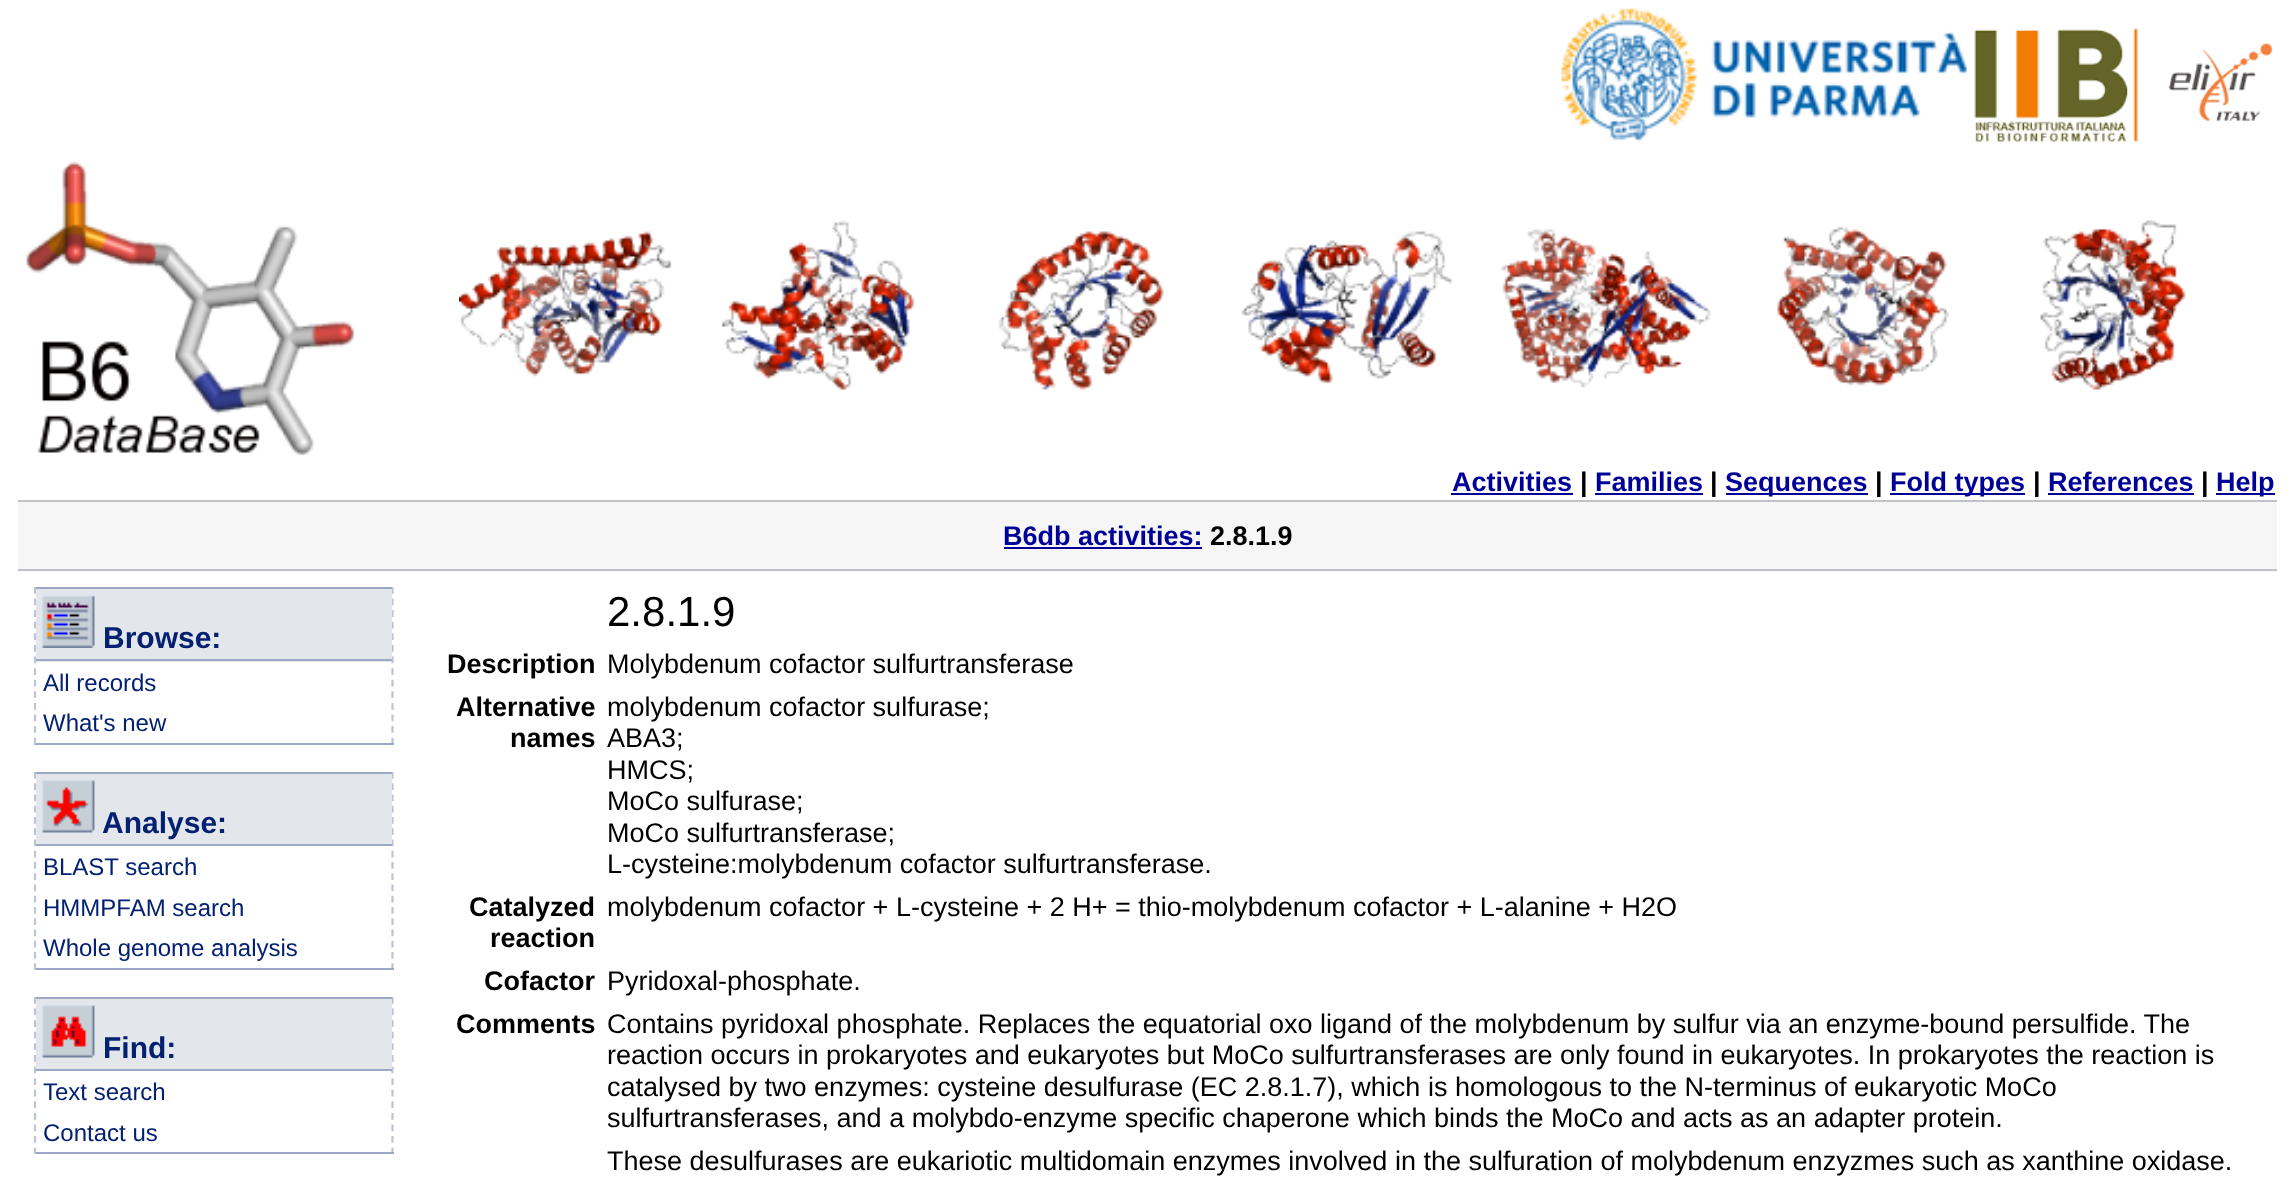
(async () => {
    const canvas = document.querySelector("canvas");
    canvas.width = 2294;
    canvas.height = 1192;
    const context = canvas.getContext("2d");
    context.miterLimit = 4;
    context.fontKerning = "normal";
    function write(s, x, y, font, color) {
        context.font = font;
        context.fillStyle = color;
        context.fillText(s, x, y);
    }
    function block(x, y, w, h, color) {
        context.fillStyle = color;
        context.fillRect(x, y, w, h);
    }
    async function photo(src, x, y, w, h) {
        const img = new Image();
        img.src = src;
        await img.decode();
        context.drawImage(img, x, y, w, h);
    }

    block(0, 0, 2294, 1192, "rgb(255, 255, 255)");
    await photo("media/1.png", 1561, 8, 406, 134);
    await photo("media/2.png", 1974, 28, 300, 114);
    await photo("media/3.png", 26, 161, 328, 295);
    await photo("media/4.png", 459, 231, 213, 146);
    await photo("media/5.png", 721, 220, 194, 170);
    await photo("media/6.png", 998, 231, 166, 159);
    await photo("media/7.png", 1241, 231, 211, 153);
    await photo("media/8.png", 1500, 229, 211, 159);
    await photo("media/9.png", 1777, 226, 172, 160);
    await photo("media/10.png", 2040, 220, 146, 170);
    write("Activities", 1452, 491, "bold 27px Liberation Sans", "rgb(0, 0, 153)");
    block(1451, 493, 122, 2, "rgb(0, 0, 153)");
    write("|", 1580, 491, "bold 27px Liberation Sans", "rgb(0, 0, 0)");
    write("Families", 1595, 491, "bold 27px Liberation Sans", "rgb(0, 0, 153)");
    block(1595, 493, 108, 2, "rgb(0, 0, 153)");
    write("|", 1710, 491, "bold 27px Liberation Sans", "rgb(0, 0, 0)");
    block(1726, 493, 142, 2, "rgb(0, 0, 153)");
    write("Sequences", 1725, 491, "bold 27px Liberation Sans", "rgb(0, 0, 153)");
    write("|", 1875, 491, "bold 27px Liberation Sans", "rgb(0, 0, 0)");
    block(1890, 493, 135, 2, "rgb(0, 0, 153)");
    write("Fold types", 1890, 491, "bold 27px Liberation Sans", "rgb(0, 0, 153)");
    write("|", 2033, 491, "bold 27px Liberation Sans", "rgb(0, 0, 0)");
    write("References", 2048, 491, "bold 27px Liberation Sans", "rgb(0, 0, 153)");
    block(2048, 493, 146, 2, "rgb(0, 0, 153)");
    write("|", 2201, 491, "bold 27px Liberation Sans", "rgb(0, 0, 0)");
    block(2216, 493, 59, 2, "rgb(0, 0, 153)");
    write("Help", 2216, 491, "bold 27px Liberation Sans", "rgb(0, 0, 153)");
    block(18, 502, 2259, 70, "rgb(246, 246, 246)");
    block(18, 500, 2259, 2, "rgb(191, 194, 199)");
    block(18, 569, 2259, 2, "rgb(191, 194, 199)");
    write("B6db activities:", 1003, 545, "bold 27px Liberation Sans", "rgb(0, 0, 153)");
    block(1004, 547, 198, 2, "rgb(0, 0, 153)");
    write("2.8.1.9", 1210, 545, "bold 27px Liberation Sans", "rgb(0, 0, 0)");
    context.beginPath();
    context.moveTo(392.5, 587);
    context.lineTo(392.5, 745);
    context.strokeStyle = "rgb(189, 196, 215)";
    context.lineWidth = 2.2;
    context.setLineDash([6.75, 4.84]);
    context.stroke();
    block(34, 743, 360, 2, "rgb(157, 168, 199)");
    context.beginPath();
    context.moveTo(35, 587);
    context.lineTo(35, 745);
    context.stroke();
    block(36, 589, 356, 73, "rgb(227, 230, 235)");
    block(36, 587, 356, 2, "rgb(157, 168, 199)");
    block(36, 659, 356, 2, "rgb(157, 168, 199)");
    await photo("media/11.png", 41, 594, 54, 54);
    write("Browse:", 103, 648, "bold 30px Liberation Sans", "rgb(3, 32, 113)");
    write("All records", 43, 691, "24px Liberation Sans", "rgb(3, 32, 113)");
    write("What's new", 43, 731, "24px Liberation Sans", "rgb(3, 32, 113)");
    context.beginPath();
    context.moveTo(392.5, 772);
    context.lineTo(392.5, 970);
    context.setLineDash([6.75, 4.5]);
    context.stroke();
    block(34, 968, 360, 2, "rgb(157, 168, 199)");
    context.beginPath();
    context.moveTo(35, 772);
    context.lineTo(35, 970);
    context.stroke();
    block(36, 774, 356, 70, "rgb(227, 230, 235)");
    block(36, 772, 356, 2, "rgb(157, 168, 199)");
    block(36, 844, 356, 2, "rgb(157, 168, 199)");
    await photo("media/12.png", 41, 779, 54, 54);
    write("Analyse:", 102, 833, "bold 30px Liberation Sans", "rgb(3, 32, 113)");
    write("BLAST search", 43, 875, "24px Liberation Sans", "rgb(3, 32, 113)");
    write("HMMPFAM search", 43, 916, "24px Liberation Sans", "rgb(3, 32, 113)");
    write("Whole genome analysis", 43, 956, "24px Liberation Sans", "rgb(3, 32, 113)");
    context.beginPath();
    context.moveTo(392.5, 997);
    context.lineTo(392.5, 1154);
    context.setLineDash([6.75, 4.84]);
    context.stroke();
    block(34, 1152, 360, 2, "rgb(157, 168, 199)");
    context.beginPath();
    context.moveTo(35, 997);
    context.lineTo(35, 1154);
    context.stroke();
    block(36, 999, 356, 70, "rgb(227, 230, 235)");
    block(36, 997, 356, 2, "rgb(157, 168, 199)");
    block(36, 1069, 356, 2, "rgb(157, 168, 199)");
    await photo("media/13.png", 41, 1004, 54, 54);
    write("Find:", 103, 1058, "bold 30px Liberation Sans", "rgb(3, 32, 113)");
    write("Text search", 43, 1100, "24px Liberation Sans", "rgb(3, 32, 113)");
    write("Contact us", 43, 1141, "24px Liberation Sans", "rgb(3, 32, 113)");
    write("2.8.1.9", 607, 626, "42px Liberation Sans", "rgb(0, 0, 0)");
    write("Description", 447, 673, "bold 27px Liberation Sans", "rgb(0, 0, 0)");
    write("Molybdenum cofactor sulfurtransferase", 607, 673, "27px Liberation Sans", "rgb(0, 0, 0)");
    write("Alternative", 456, 716, "bold 27px Liberation Sans", "rgb(0, 0, 0)");
    write("names", 510, 747, "bold 27px Liberation Sans", "rgb(0, 0, 0)");
    write("molybdenum cofactor sulfurase;", 607, 716, "27px Liberation Sans", "rgb(0, 0, 0)");
    write("ABA3;", 607, 747, "27px Liberation Sans", "rgb(0, 0, 0)");
    write("HMCS;", 607, 779, "27px Liberation Sans", "rgb(0, 0, 0)");
    write("MoCo sulfurase;", 607, 810, "27px Liberation Sans", "rgb(0, 0, 0)");
    write("MoCo sulfurtransferase;", 607, 842, "27px Liberation Sans", "rgb(0, 0, 0)");
    write("L-cysteine:molybdenum cofactor sulfurtransferase.", 607, 873, "27px Liberation Sans", "rgb(0, 0, 0)");
    write("Catalyzed", 469, 916, "bold 27px Liberation Sans", "rgb(0, 0, 0)");
    write("reaction", 490, 947, "bold 27px Liberation Sans", "rgb(0, 0, 0)");
    write("molybdenum cofactor + L-cysteine + 2 H+ = thio-molybdenum cofactor + L-alanine + H2O", 607, 916, "27px Liberation Sans", "rgb(0, 0, 0)");
    write("Cofactor", 484, 990, "bold 27px Liberation Sans", "rgb(0, 0, 0)");
    write("Pyridoxal-phosphate.", 607, 990, "27px Liberation Sans", "rgb(0, 0, 0)");
    write("Comments", 456, 1033, "bold 27px Liberation Sans", "rgb(0, 0, 0)");
    write("Contains pyridoxal phosphate. Replaces the equatorial oxo ligand of the molybdenum by sulfur via an enzyme-bound persulfide. The", 607, 1033, "27px Liberation Sans", "rgb(0, 0, 0)");
    write("reaction occurs in prokaryotes and eukaryotes but MoCo sulfurtransferases are only found in eukaryotes. In prokaryotes the reaction is", 607, 1064, "27px Liberation Sans", "rgb(0, 0, 0)");
    write("catalysed by two enzymes: cysteine desulfurase (EC 2.8.1.7), which is homologous to the N-terminus of eukaryotic MoCo", 607, 1096, "27px Liberation Sans", "rgb(0, 0, 0)");
    write("sulfurtransferases, and a molybdo-enzyme specific chaperone which binds the MoCo and acts as an adapter protein.", 607, 1127, "27px Liberation Sans", "rgb(0, 0, 0)");
    write("These desulfurases are eukariotic multidomain enzymes involved in the sulfuration of molybdenum enzyzmes such as xanthine oxidase.", 607, 1170, "27px Liberation Sans", "rgb(0, 0, 0)");
})();
